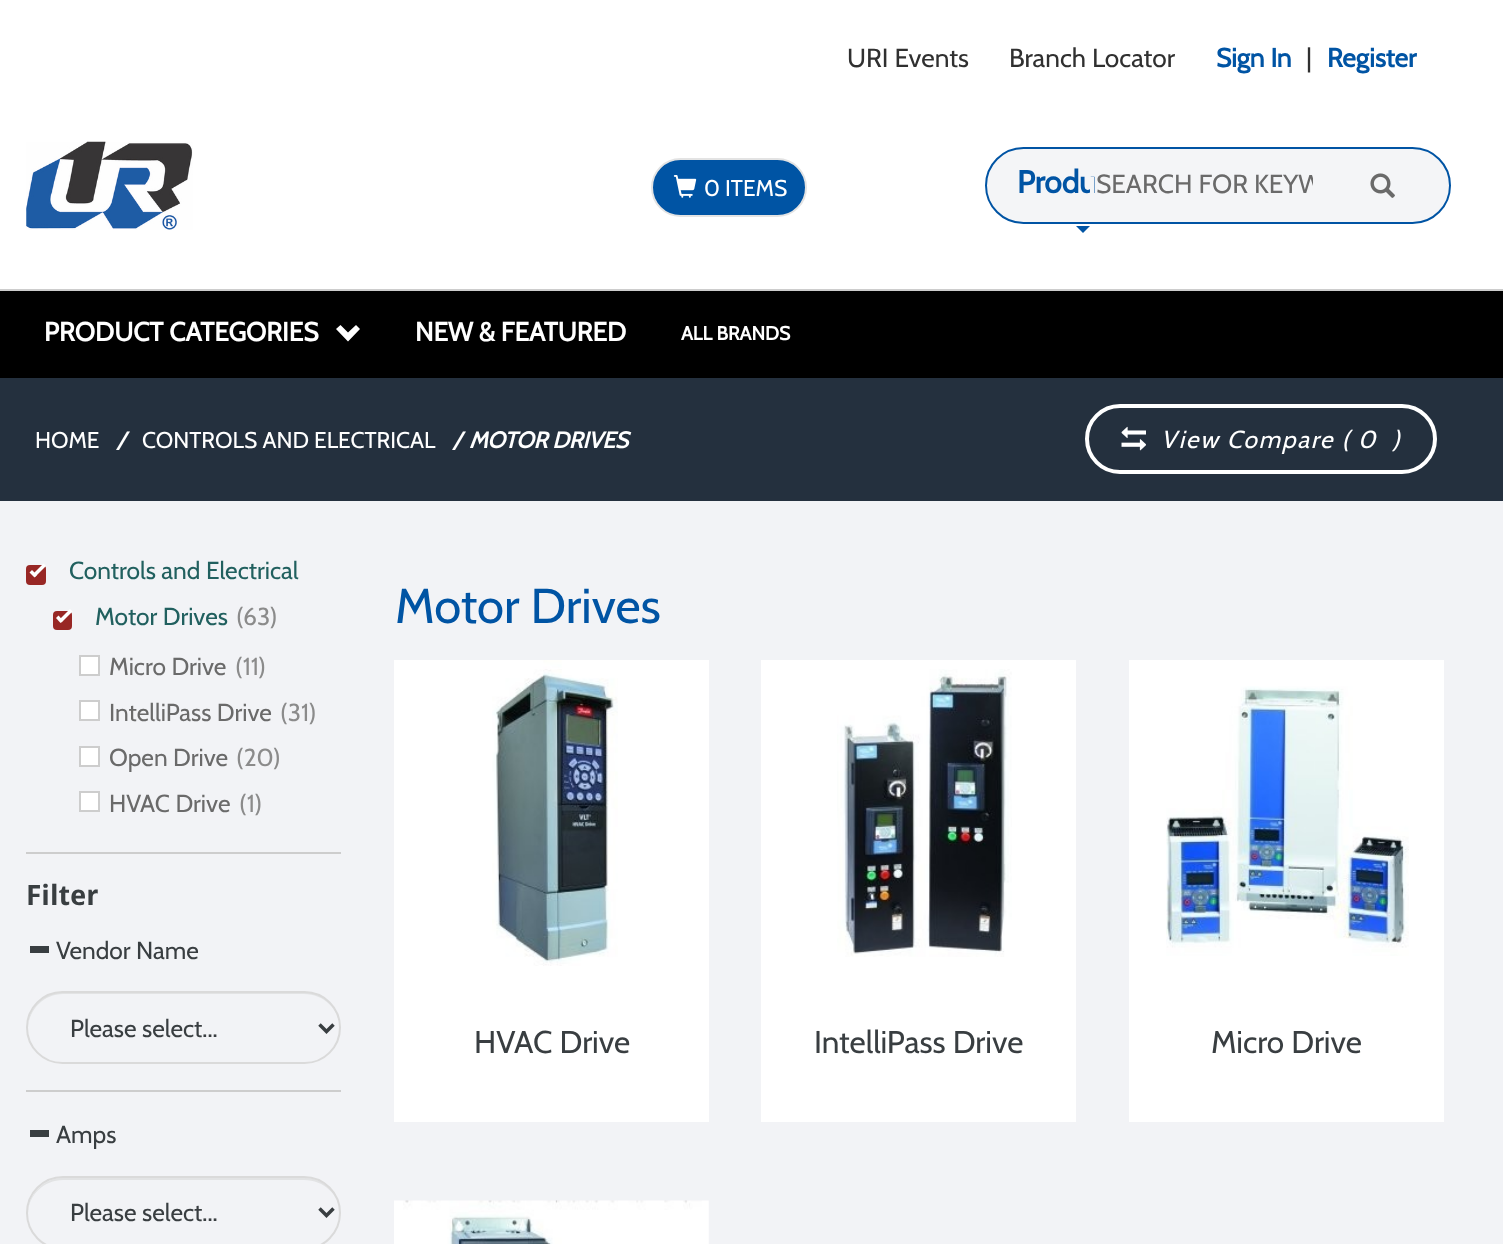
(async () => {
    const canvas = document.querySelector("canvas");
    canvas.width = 1503;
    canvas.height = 1244;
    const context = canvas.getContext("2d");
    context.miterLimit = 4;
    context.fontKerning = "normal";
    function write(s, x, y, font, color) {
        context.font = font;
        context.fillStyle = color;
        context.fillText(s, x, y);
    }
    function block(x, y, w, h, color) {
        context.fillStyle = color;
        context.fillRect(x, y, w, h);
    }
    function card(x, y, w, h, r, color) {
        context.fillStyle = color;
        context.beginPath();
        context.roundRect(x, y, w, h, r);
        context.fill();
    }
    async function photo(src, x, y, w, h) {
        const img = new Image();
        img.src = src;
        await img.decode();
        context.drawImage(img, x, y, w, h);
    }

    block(0, 0, 1503, 1244, "rgb(255, 255, 255)");
    write("URI Events", 847, 67, "26.25px Cabin", "rgb(48, 48, 48)");
    write("Branch Locator", 1009, 67, "26.25px Cabin", "rgb(48, 48, 48)");
    write("Sign In", 1216, 67, "bold 26.25px Cabin", "rgb(0, 84, 164)");
    write("|", 1306, 67, "26.25px Cabin", "rgb(48, 48, 48)");
    write("Register", 1327, 67, "bold 26.25px Cabin", "rgb(0, 84, 164)");
    await photo("media/1.png", 26, 141, 167, 89);
    context.beginPath();
    context.roundRect(652, 159, 154, 57, 28.5);
    context.fill();
    context.strokeStyle = "rgb(227, 227, 227)";
    context.lineWidth = 2;
    context.stroke();
    await photo("media/2.png", 673, 175, 24, 23);
    write("0 ITEMS", 704, 196, "22.75px Cabin", "rgb(255, 255, 255)");
    context.fillStyle = "rgb(244, 245, 247)";
    context.beginPath();
    context.roundRect(986, 148, 464, 75, 37.5);
    context.fill();
    context.strokeStyle = "rgb(0, 84, 164)";
    context.stroke();
    write("Produ", 1017, 193, "bold 31.5px Cabin", "rgb(0, 84, 164)");
    context.beginPath();
    context.moveTo(1076, 226);
    context.lineTo(1090, 226);
    context.lineTo(1083, 233);
    context.closePath();
    context.fill();
    block(1090, 177, 4, 16, "rgb(244, 245, 247)");
    context.save();
    context.beginPath();
    context.rect(1096, 170, 217, 31);
    context.clip();
    write("SEARCH FOR KEYW", 1096, 193, "26.25px Cabin", "rgb(106, 106, 106)");
    context.restore();
    await photo("media/3.png", 1370, 173, 25, 25);
    block(0, 291, 1503, 87, "rgb(0, 0, 0)");
    block(0, 289, 1503, 2, "rgb(205, 205, 205)");
    write("PRODUCT CATEGORIES", 44, 341, "bold 26.25px Cabin", "rgb(255, 255, 255)");
    context.beginPath();
    context.moveTo(360, 329);
    context.lineTo(348, 341.5);
    context.lineTo(336, 329);
    context.lineTo(340.5, 325);
    context.lineTo(348, 332.5);
    context.lineTo(356, 325);
    context.closePath();
    context.fill();
    write("NEW & FEATURED", 415, 341, "bold 26.25px Cabin", "rgb(255, 255, 255)");
    write("ALL BRANDS", 681, 340, "bold 19.25px Cabin", "rgb(255, 255, 255)");
    block(0, 378, 1503, 123, "rgb(36, 48, 62)");
    write("HOME", 35, 448, "22.75px Cabin", "rgb(255, 255, 255)");
    write("/", 117, 448, "italic bold 22.75px Cabin", "rgb(255, 255, 255)");
    write("CONTROLS AND ELECTRICAL", 142, 448, "22.75px Cabin", "rgb(255, 255, 255)");
    write("/", 453, 448, "italic bold 22.75px Cabin", "rgb(255, 255, 255)");
    write("MOTOR DRIVES", 469, 448, "italic bold 22.75px Cabin", "rgb(255, 255, 255)");
    context.beginPath();
    context.roundRect(1087, 406, 348, 66, 33);
    context.strokeStyle = "rgb(255, 255, 255)";
    context.lineWidth = 4;
    context.stroke();
    await photo("media/4.png", 1121, 426, 25, 25);
    context.letterSpacing = "1.75px";
    write("View Compare ( 0", 1161, 448, "italic 24.5px Cabin", "rgb(255, 255, 255)");
    write(")", 1392, 448, "italic 24.5px Cabin", "rgb(255, 255, 255)");
    block(0, 501, 1503, 743, "rgb(242, 243, 246)");
    block(26, 852, 315, 2, "rgb(205, 205, 205)");
    card(26, 565, 20, 20, 4, "rgb(152, 39, 37)");
    context.fillStyle = "rgb(255, 255, 255)";
    context.beginPath();
    context.moveTo(32, 570);
    context.lineTo(37, 575);
    context.lineTo(34.5, 577.5);
    context.lineTo(29.5, 572.5);
    context.closePath();
    context.fill();
    context.beginPath();
    context.moveTo(32.5, 574.5);
    context.lineTo(43.5, 563.5);
    context.lineTo(46, 566);
    context.lineTo(35, 577);
    context.closePath();
    context.fill();
    context.letterSpacing = "0px";
    write("Controls and Electrical", 69, 579, "24.5px Cabin", "rgb(33, 96, 95)");
    card(53, 611, 19, 19, 4, "rgb(152, 39, 37)");
    context.fillStyle = "rgb(255, 255, 255)";
    context.beginPath();
    context.moveTo(58.5, 615.5);
    context.lineTo(63, 620.5);
    context.lineTo(60.5, 623);
    context.lineTo(56, 618);
    context.closePath();
    context.fill();
    context.beginPath();
    context.moveTo(59, 620);
    context.lineTo(70, 609);
    context.lineTo(72.5, 611.5);
    context.lineTo(61.5, 622.5);
    context.closePath();
    context.fill();
    write("Motor Drives", 95, 625, "24.5px Cabin", "rgb(33, 96, 95)");
    write("(63)", 236, 625, "24.5px Cabin", "rgb(139, 139, 139)");
    context.fillStyle = "rgb(255, 255, 255)";
    context.beginPath();
    context.rect(80, 656, 19, 19);
    context.fill();
    context.strokeStyle = "rgb(205, 205, 205)";
    context.lineWidth = 2;
    context.stroke();
    write("Micro Drive", 109, 675, "24.5px Cabin", "rgb(106, 106, 106)");
    write("(11)", 235, 675, "24.5px Cabin", "rgb(139, 139, 139)");
    context.fillStyle = "rgb(255, 255, 255)";
    context.beginPath();
    context.rect(80, 701, 19, 19);
    context.fill();
    context.stroke();
    write("IntelliPass Drive", 109, 721, "24.5px Cabin", "rgb(106, 106, 106)");
    write("(31)", 280, 721, "24.5px Cabin", "rgb(139, 139, 139)");
    context.fillStyle = "rgb(255, 255, 255)";
    context.beginPath();
    context.rect(80, 747, 19, 19);
    context.fill();
    context.stroke();
    write("Open Drive", 109, 766, "24.5px Cabin", "rgb(106, 106, 106)");
    write("(20)", 236, 766, "24.5px Cabin", "rgb(139, 139, 139)");
    context.fillStyle = "rgb(255, 255, 255)";
    context.beginPath();
    context.rect(80, 792, 19, 19);
    context.fill();
    context.stroke();
    write("HVAC Drive", 109, 812, "24.5px Cabin", "rgb(106, 106, 106)");
    write("(1)", 239, 812, "24.5px Cabin", "rgb(139, 139, 139)");
    block(26, 1090, 315, 2, "rgb(205, 205, 205)");
    write("Filter", 26, 905, "bold 28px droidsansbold", "rgb(57, 62, 65)");
    block(30, 946, 19, 7, "rgb(57, 62, 65)");
    write("Vendor Name", 56, 959, "24.5px Cabin", "rgb(57, 62, 65)");
    context.fillStyle = "rgb(226, 227, 228)";
    context.beginPath();
    context.moveTo(63, 994);
    context.lineTo(304, 994);
    context.bezierCurveTo(324, 994, 339, 1009, 340, 1028);
    context.lineTo(340, 1027);
    context.bezierCurveTo(340, 1008, 324, 992, 305, 992);
    context.lineTo(63, 992);
    context.bezierCurveTo(44, 992, 28, 1008, 28, 1027);
    context.lineTo(28, 1028);
    context.bezierCurveTo(29, 1009, 44, 994, 63, 994);
    context.closePath();
    context.fill();
    context.beginPath();
    context.roundRect(27, 992, 313, 71, 35.5);
    context.strokeStyle = "rgb(218, 218, 218)";
    context.stroke();
    context.beginPath();
    context.moveTo(319.5, 1024.5);
    context.lineTo(326.5, 1031.5);
    context.lineTo(333.5, 1024.5);
    context.strokeStyle = "rgb(57, 62, 65)";
    context.lineWidth = 3.5;
    context.stroke();
    write("Please select...", 70, 1037, "24.5px Cabin", "rgb(57, 62, 65)");
    block(30, 1130, 19, 7, "rgb(57, 62, 65)");
    write("Amps", 56, 1143, "24.5px Cabin", "rgb(57, 62, 65)");
    context.fillStyle = "rgb(226, 227, 228)";
    context.beginPath();
    context.moveTo(63, 1180);
    context.lineTo(304, 1180);
    context.bezierCurveTo(324, 1180, 340, 1195, 340, 1214);
    context.lineTo(340, 1213);
    context.bezierCurveTo(340, 1194, 324, 1178, 305, 1178);
    context.lineTo(63, 1178);
    context.bezierCurveTo(44, 1178, 28, 1194, 28, 1213);
    context.lineTo(28, 1214);
    context.bezierCurveTo(28, 1195, 44, 1180, 63, 1180);
    context.closePath();
    context.fill();
    context.beginPath();
    context.roundRect(27, 1177, 313, 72, 36);
    context.strokeStyle = "rgb(218, 218, 218)";
    context.lineWidth = 2;
    context.stroke();
    context.beginPath();
    context.moveTo(319.5, 1208.5);
    context.lineTo(326.5, 1215.5);
    context.lineTo(333.5, 1208.5);
    context.strokeStyle = "rgb(57, 62, 65)";
    context.lineWidth = 3.5;
    context.stroke();
    write("Please select...", 70, 1221, "24.5px Cabin", "rgb(57, 62, 65)");
    write("Motor Drives", 395, 623, "49px Cabin", "rgb(0, 84, 164)");
    block(394, 660, 315, 462, "rgb(255, 255, 255)");
    await photo("media/5.png", 492, 660, 126, 306);
    write("HVAC Drive", 474, 1053, "31.5px Cabin", "rgb(57, 62, 65)");
    block(761, 660, 315, 462, "rgb(255, 255, 255)");
    await photo("media/6.png", 837, 669, 175, 288);
    write("IntelliPass Drive", 814, 1053, "31.5px Cabin", "rgb(57, 62, 65)");
    block(1129, 660, 315, 462, "rgb(255, 255, 255)");
    await photo("media/7.png", 1166, 686, 243, 270);
    write("Micro Drive", 1211, 1053, "31.5px Cabin", "rgb(57, 62, 65)");
    await photo("media/8.png", 394, 1200, 315, 44);
})();
